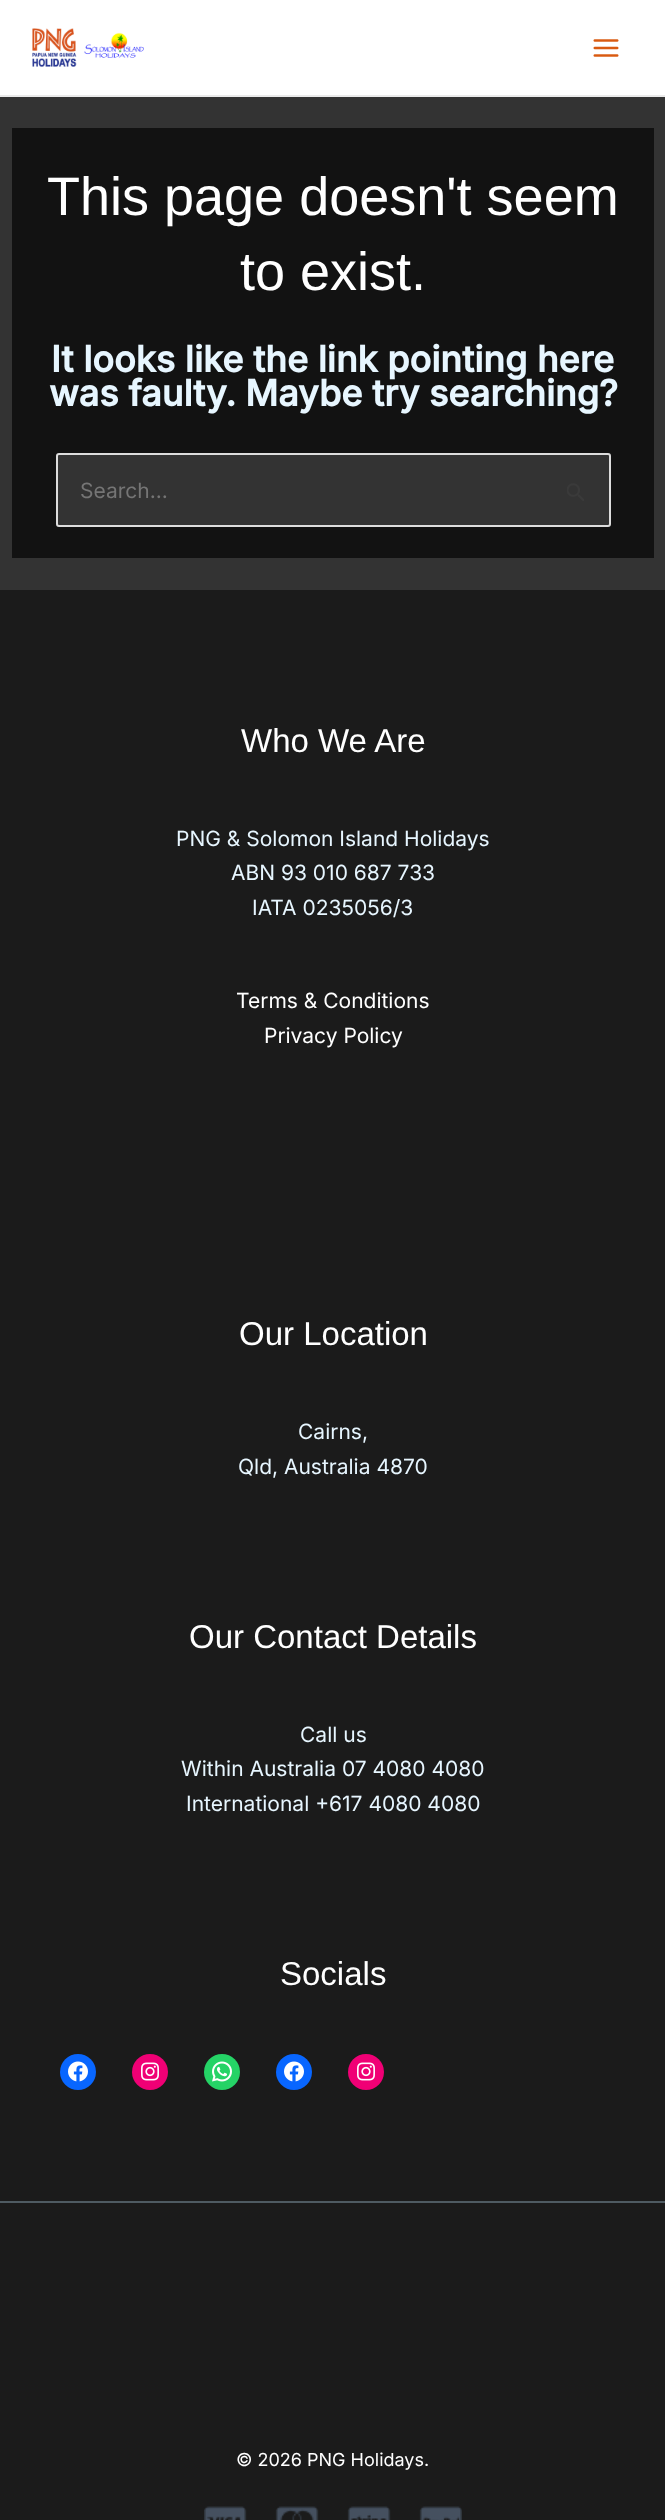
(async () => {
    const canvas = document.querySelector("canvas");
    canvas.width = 665;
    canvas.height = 2520;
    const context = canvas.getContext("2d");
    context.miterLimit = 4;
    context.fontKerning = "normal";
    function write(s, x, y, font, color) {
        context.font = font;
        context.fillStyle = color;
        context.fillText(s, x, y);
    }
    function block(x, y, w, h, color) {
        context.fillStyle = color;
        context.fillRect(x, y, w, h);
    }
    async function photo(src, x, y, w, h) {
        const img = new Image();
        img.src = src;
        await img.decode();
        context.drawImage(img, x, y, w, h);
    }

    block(0, 0, 665, 2520, "rgb(51, 51, 51)");
    block(0, 0, 665, 95, "rgb(255, 255, 255)");
    block(0, 95, 665, 2, "rgb(234, 234, 234)");
    await photo("media/1.png", 32, 28, 112, 39);
    await photo("media/2.png", 593, 39, 26, 18);
    block(12, 128, 642, 430, "rgb(18, 18, 18)");
    write("This page doesn't seem", 47, 215, "54px Liberation Sans", "rgb(255, 255, 255)");
    write("to exist.", 240, 290, "54px Liberation Sans", "rgb(255, 255, 255)");
    write("It looks like the link pointing here", 51, 372, "bold 36px Inter", "rgb(231, 246, 255)");
    write("was faulty. Maybe try searching?", 49, 406, "bold 36px Inter", "rgb(231, 246, 255)");
    context.fillStyle = "rgb(51, 51, 51)";
    context.beginPath();
    context.roundRect(57, 454, 553, 72, 2);
    context.fill();
    context.strokeStyle = "rgb(221, 221, 221)";
    context.lineWidth = 2;
    context.stroke();
    write("Search...", 80, 498, "21px Inter", "rgb(117, 117, 117)");
    await photo("media/3.png", 567, 483, 17, 18);
    block(0, 590, 665, 1611, "rgb(27, 27, 27)");
    write("Who We Are", 241, 752, "33px Liberation Sans", "rgb(255, 255, 255)");
    write("PNG & Solomon Island Holidays", 176, 846, "21px Inter", "rgb(231, 246, 255)");
    write("ABN 93 010 687 733", 231, 880, "21px Inter", "rgb(231, 246, 255)");
    write("IATA 0235056/3", 252, 915, "21px Inter", "rgb(231, 246, 255)");
    write("Terms & Conditions", 236, 1008, "21px Inter", "rgb(255, 255, 255)");
    write("Privacy Policy", 264, 1043, "21px Inter", "rgb(255, 255, 255)");
    write("Our Location", 239, 1345, "33px Liberation Sans", "rgb(255, 255, 255)");
    write("Cairns,", 298, 1439, "21px Inter", "rgb(231, 246, 255)");
    write("Qld, Australia 4870", 238, 1474, "21px Inter", "rgb(231, 246, 255)");
    write("Our Contact Details", 189, 1648, "33px Liberation Sans", "rgb(255, 255, 255)");
    write("Call us", 300, 1742, "21px Inter", "rgb(231, 246, 255)");
    write("Within Australia 07 4080 4080", 181, 1776, "21px Inter", "rgb(231, 246, 255)");
    write("International +617 4080 4080", 186, 1811, "21px Inter", "rgb(231, 246, 255)");
    write("Socials", 280, 1985, "33px Liberation Sans", "rgb(255, 255, 255)");
    context.fillStyle = "rgb(8, 102, 255)";
    context.beginPath();
    context.arc(78, 2072, 18, 0, Math.PI * 2);
    context.fill();
    await photo("media/4.png", 68, 2061, 20, 21);
    context.fillStyle = "rgb(240, 0, 117)";
    context.beginPath();
    context.arc(150, 2072, 18, 0, Math.PI * 2);
    context.fill();
    await photo("media/5.png", 141, 2062, 18, 19);
    context.fillStyle = "rgb(37, 211, 102)";
    context.beginPath();
    context.arc(222, 2072, 18, 0, Math.PI * 2);
    context.fill();
    await photo("media/6.png", 212, 2061, 20, 21);
    context.fillStyle = "rgb(8, 102, 255)";
    context.beginPath();
    context.arc(294, 2072, 18, 0, Math.PI * 2);
    context.fill();
    await photo("media/4.png", 284, 2061, 20, 21);
    context.fillStyle = "rgb(240, 0, 117)";
    context.beginPath();
    context.arc(366, 2072, 18, 0, Math.PI * 2);
    context.fill();
    await photo("media/5.png", 357, 2062, 18, 19);
    block(0, 2203, 665, 317, "rgb(27, 27, 27)");
    block(0, 2201, 665, 2, "rgb(79, 91, 98)");
    write("© 2026 PNG Holidays.", 236, 2466, "18px Inter", "rgb(255, 255, 255)");
    await photo("media/7.png", 204, 2506, 258, 14);
})();
